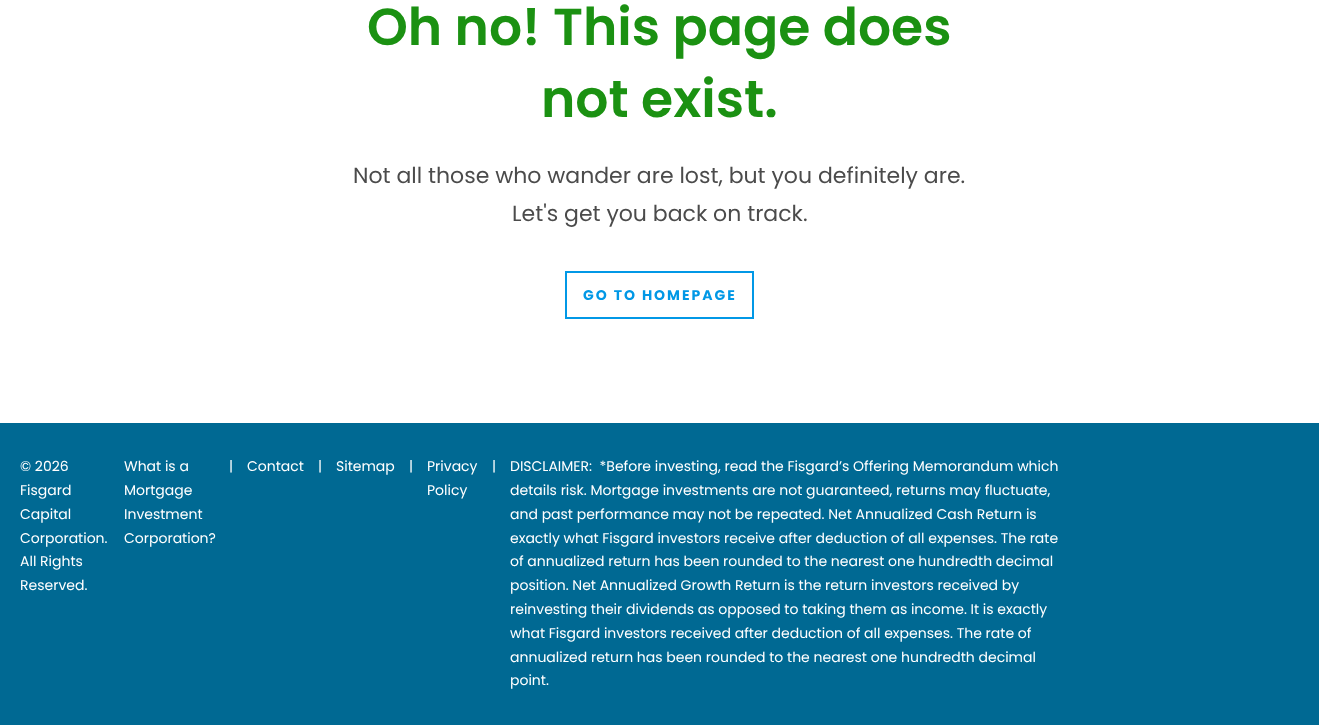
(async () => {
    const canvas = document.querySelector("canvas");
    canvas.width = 1319;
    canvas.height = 725;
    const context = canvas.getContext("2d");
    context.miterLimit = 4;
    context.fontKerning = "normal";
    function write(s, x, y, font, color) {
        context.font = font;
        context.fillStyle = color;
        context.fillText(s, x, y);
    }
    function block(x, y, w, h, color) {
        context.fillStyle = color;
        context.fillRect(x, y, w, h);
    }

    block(0, 0, 1319, 725, "rgb(255, 255, 255)");
    write("Oh no! This page does", 367, 45, "600 52px Poppins", "rgb(27, 145, 18)");
    write("not exist.", 541, 117, "600 52px Poppins", "rgb(27, 145, 18)");
    write("Not all those who wander are lost, but you definitely are.", 353, 183, "22px Poppins", "rgb(75, 75, 75)");
    write("Let's get you back on track.", 512, 221, "22px Poppins", "rgb(75, 75, 75)");
    context.strokeStyle = "rgb(1, 152, 230)";
    context.lineWidth = 2;
    context.strokeRect(566, 272, 187, 46);
    context.letterSpacing = "2px";
    write("GO TO HOMEPAGE", 583, 300, "bold 14px Poppins", "rgb(1, 152, 230)");
    block(0, 423, 1319, 302, "rgb(0, 105, 147)");
    context.letterSpacing = "0px";
    write("© 2026", 20, 471, "14px Poppins", "rgb(255, 255, 255)");
    write("What is a", 124, 471, "14px Poppins", "rgb(255, 255, 255)");
    write("Mortgage", 124, 495, "14px Poppins", "rgb(255, 255, 255)");
    write("Investment", 124, 519, "14px Poppins", "rgb(255, 255, 255)");
    write("Corporation?", 124, 543, "14px Poppins", "rgb(255, 255, 255)");
    write("|", 229, 471, "14px Poppins", "rgb(255, 255, 255)");
    write("Contact", 247, 471, "14px Poppins", "rgb(255, 255, 255)");
    write("|", 318, 471, "14px Poppins", "rgb(255, 255, 255)");
    write("Sitemap", 336, 471, "14px Poppins", "rgb(255, 255, 255)");
    write("|", 409, 471, "14px Poppins", "rgb(255, 255, 255)");
    write("Privacy", 427, 471, "14px Poppins", "rgb(255, 255, 255)");
    write("Policy", 427, 495, "14px Poppins", "rgb(255, 255, 255)");
    write("|", 492, 471, "14px Poppins", "rgb(255, 255, 255)");
    write("DISCLAIMER:  *Before investing, read the Fisgard’s Offering Memorandum which", 510, 471, "14px Poppins", "rgb(255, 255, 255)");
    write("details risk. Mortgage investments are not guaranteed, returns may fluctuate,", 510, 495, "14px Poppins", "rgb(255, 255, 255)");
    write("and past performance may not be repeated. Net Annualized Cash Return is", 510, 519, "14px Poppins", "rgb(255, 255, 255)");
    write("exactly what Fisgard investors receive after deduction of all expenses. The rate", 510, 543, "14px Poppins", "rgb(255, 255, 255)");
    write("of annualized return has been rounded to the nearest one hundredth decimal", 510, 566, "14px Poppins", "rgb(255, 255, 255)");
    write("position. Net Annualized Growth Return is the return investors received by", 510, 590, "14px Poppins", "rgb(255, 255, 255)");
    write("reinvesting their dividends as opposed to taking them as income. It is exactly", 510, 614, "14px Poppins", "rgb(255, 255, 255)");
    write("what Fisgard investors received after deduction of all expenses. The rate of", 510, 638, "14px Poppins", "rgb(255, 255, 255)");
    write("annualized return has been rounded to the nearest one hundredth decimal", 510, 662, "14px Poppins", "rgb(255, 255, 255)");
    write("point.", 510, 685, "14px Poppins", "rgb(255, 255, 255)");
    write("Fisgard", 20, 495, "14px Poppins", "rgb(255, 255, 255)");
    write("Capital", 20, 519, "14px Poppins", "rgb(255, 255, 255)");
    write("Corporation.", 20, 543, "14px Poppins", "rgb(255, 255, 255)");
    write("All Rights", 20, 566, "14px Poppins", "rgb(255, 255, 255)");
    write("Reserved.", 20, 590, "14px Poppins", "rgb(255, 255, 255)");
})();
